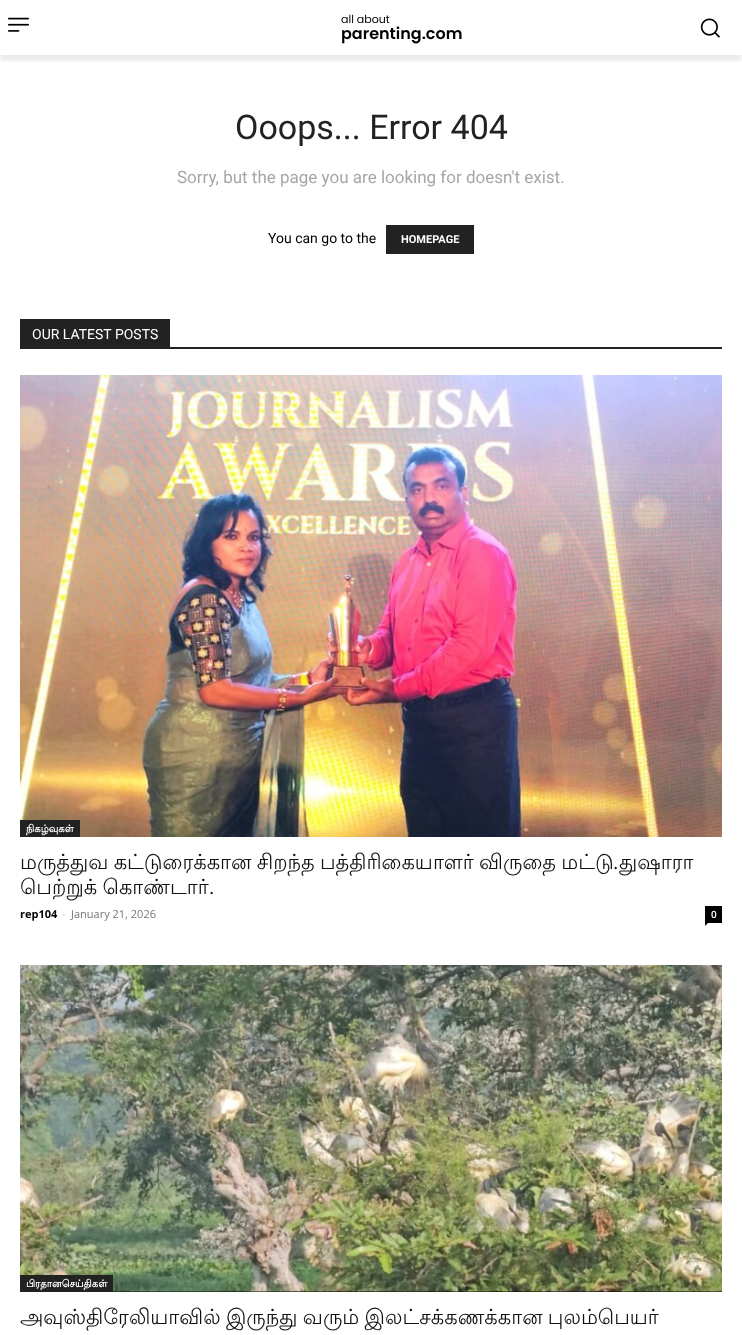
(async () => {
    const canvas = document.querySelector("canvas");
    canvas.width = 742;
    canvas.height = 1335;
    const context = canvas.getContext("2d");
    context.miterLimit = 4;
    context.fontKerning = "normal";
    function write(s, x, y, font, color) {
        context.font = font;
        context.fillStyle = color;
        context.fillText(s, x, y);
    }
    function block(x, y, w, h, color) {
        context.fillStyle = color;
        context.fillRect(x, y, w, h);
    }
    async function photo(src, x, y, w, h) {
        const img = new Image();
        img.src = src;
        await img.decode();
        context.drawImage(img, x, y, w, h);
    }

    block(0, 0, 742, 1335, "rgb(255, 255, 255)");
    await photo("media/1.png", 8, 17, 21, 15);
    await photo("media/2.png", 700, 18, 20, 20);
    context.save();
    context.beginPath();
    context.rect(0, 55, 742, 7);
    context.clip();
    context.fillStyle = "rgba(0, 0, 0, 0.08)";
    context.filter = "blur(2px)";
    context.beginPath();
    context.rect(0, 6, 742, 55);
    context.fill();
    context.filter = "none";
    context.restore();
    write("all about", 341, 23, "11px Poppins", "rgb(0, 0, 0)");
    write("parenting.com", 341, 39, "600 16px Poppins", "rgb(0, 0, 0)");
    write("Ooops... Error 404", 235, 139, "34px Roboto", "rgb(34, 34, 34)");
    write("Sorry, but the page you are looking for doesn't exist.", 177, 183, "17px Roboto", "rgb(166, 166, 166)");
    write("You can go to the", 268, 243, "14px Roboto", "rgb(0, 0, 0)");
    block(386, 225, 88, 29, "rgb(34, 34, 34)");
    write("HOMEPAGE", 401, 243, "bold 11px Roboto", "rgb(255, 255, 255)");
    block(20, 347, 702, 2, "rgb(34, 34, 34)");
    block(20, 319, 150, 28, "rgb(34, 34, 34)");
    write("OUR LATEST POSTS", 32, 339, "14px Roboto", "rgb(255, 255, 255)");
    await photo("media/3.png", 20, 375, 702, 462);
    block(20, 820, 60, 17, "rgb(34, 34, 34)");
    write("நிகழ்வுகள்", 26, 832, "bold 10px Lohit Tamil", "rgb(255, 255, 255)");
    context.wordSpacing = "-1px";
    write("மருத்துவ கட்டுரைக்கான சிறந்த பத்திரிகையாளர் விருதை மட்டு", 20, 869, "21px Lohit Tamil", "rgb(17, 17, 17)");
    context.wordSpacing = "0px";
    write(".", 613, 869, "21px Roboto", "rgb(17, 17, 17)");
    write("துஷாரா", 619, 869, "21px Lohit Tamil", "rgb(17, 17, 17)");
    context.wordSpacing = "-1px";
    write("பெற்றுக் கொண்டார்", 20, 894, "21px Lohit Tamil", "rgb(17, 17, 17)");
    context.wordSpacing = "0px";
    write(".", 209, 894, "21px Roboto", "rgb(17, 17, 17)");
    write("rep104", 20, 918, "bold 11px Open Sans", "rgb(0, 0, 0)");
    write("-", 62, 918, "11px Open Sans", "rgb(204, 204, 204)");
    write("January 21, 2026", 71, 918, "11px Open Sans", "rgb(118, 118, 118)");
    block(705, 906, 17, 17, "rgb(0, 0, 0)");
    write("0", 711, 918, "600 10px Open Sans", "rgb(255, 255, 255)");
    context.fillStyle = "rgb(0, 0, 0)";
    context.beginPath();
    context.moveTo(705, 923);
    context.lineTo(708, 923);
    context.lineTo(705, 926);
    context.closePath();
    context.fill();
    await photo("media/4.png", 20, 965, 702, 327);
    block(20, 1275, 93, 17, "rgb(34, 34, 34)");
    write("பிரதானசெய்திகள்", 26, 1287, "bold 10px Lohit Tamil", "rgb(255, 255, 255)");
    context.wordSpacing = "-1px";
    write("அவுஸ்திரேலியாவில் இருந்து வரும் இலட்சக்கணக்கான புலம்பெயர்", 20, 1324, "21px Lohit Tamil", "rgb(17, 17, 17)");
})();
